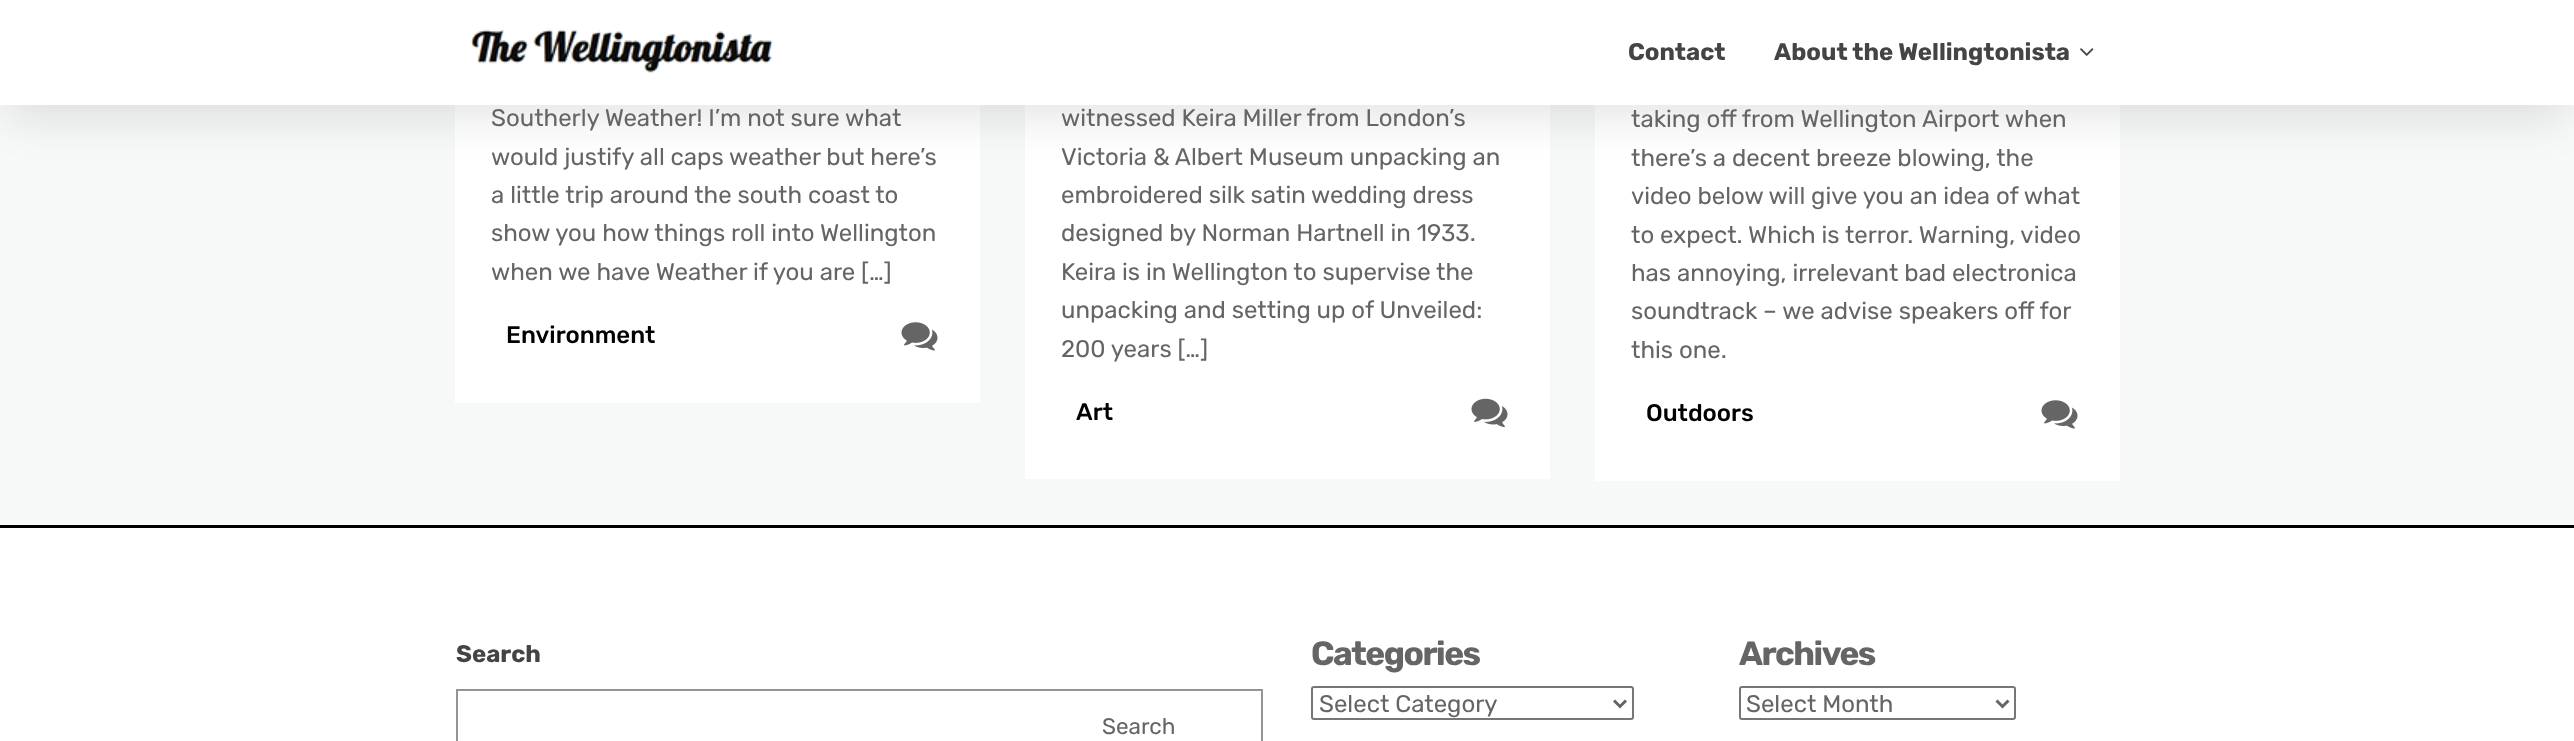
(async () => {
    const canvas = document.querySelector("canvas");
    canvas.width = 2574;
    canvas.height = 741;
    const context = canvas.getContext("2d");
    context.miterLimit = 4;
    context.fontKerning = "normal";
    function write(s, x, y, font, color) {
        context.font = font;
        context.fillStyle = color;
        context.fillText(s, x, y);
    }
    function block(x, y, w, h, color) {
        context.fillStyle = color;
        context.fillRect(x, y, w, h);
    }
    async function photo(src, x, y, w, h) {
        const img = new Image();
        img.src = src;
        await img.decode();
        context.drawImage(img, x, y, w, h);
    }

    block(0, 0, 2574, 741, "rgb(247, 248, 248)");
    block(455, 105, 525, 298, "rgb(255, 255, 255)");
    block(1025, 105, 525, 374, "rgb(255, 255, 255)");
    block(1595, 105, 525, 376, "rgb(255, 255, 255)");
    context.fillStyle = "rgba(14, 17, 20, 0.1)";
    context.filter = "blur(21px)";
    context.beginPath();
    context.rect(6, 27, 2562, 93);
    context.fill();
    context.filter = "none";
    block(0, 0, 2574, 105, "rgb(255, 255, 255)");
    await photo("media/1.png", 470, 29, 303, 44);
    write("Contact", 1628, 60, "bold 24px Rubik", "rgb(68, 68, 68)");
    write("About the Wellingtonista", 1774, 60, "bold 24px Rubik", "rgb(68, 68, 68)");
    await photo("media/2.png", 2080, 48, 14, 8);
    write("Southerly Weather! I’m not sure what", 491, 126, "24px Rubik", "rgb(101, 101, 101)");
    write("would justify all caps weather but here’s", 491, 165, "24px Rubik", "rgb(101, 101, 101)");
    write("a little trip around the south coast to", 491, 203, "24px Rubik", "rgb(101, 101, 101)");
    write("show you how things roll into Wellington", 491, 241, "24px Rubik", "rgb(101, 101, 101)");
    write("when we have Weather if you are […]", 491, 280, "24px Rubik", "rgb(101, 101, 101)");
    write("Environment", 506, 343, "500 24px Rubik", "rgb(0, 0, 0)");
    await photo("media/3.png", 901, 322, 37, 29);
    write("witnessed Keira Miller from London’s", 1061, 126, "24px Rubik", "rgb(101, 101, 101)");
    write("Victoria & Albert Museum unpacking an", 1061, 165, "24px Rubik", "rgb(101, 101, 101)");
    write("embroidered silk satin wedding dress", 1061, 203, "24px Rubik", "rgb(101, 101, 101)");
    write("designed by Norman Hartnell in 1933.", 1061, 241, "24px Rubik", "rgb(101, 101, 101)");
    write("Keira is in Wellington to supervise the", 1061, 280, "24px Rubik", "rgb(101, 101, 101)");
    write("unpacking and setting up of Unveiled:", 1061, 318, "24px Rubik", "rgb(101, 101, 101)");
    write("200 years […]", 1061, 357, "24px Rubik", "rgb(101, 101, 101)");
    write("Art", 1076, 420, "500 24px Rubik", "rgb(0, 0, 0)");
    await photo("media/4.png", 1471, 398, 37, 29);
    write("taking off from Wellington Airport when", 1631, 127, "24px Rubik", "rgb(101, 101, 101)");
    write("there’s a decent breeze blowing, the", 1631, 166, "24px Rubik", "rgb(101, 101, 101)");
    write("video below will give you an idea of what", 1631, 204, "24px Rubik", "rgb(101, 101, 101)");
    write("to expect. Which is terror. Warning, video", 1631, 243, "24px Rubik", "rgb(101, 101, 101)");
    write("has annoying, irrelevant bad electronica", 1631, 281, "24px Rubik", "rgb(101, 101, 101)");
    write("soundtrack – we advise speakers off for", 1631, 319, "24px Rubik", "rgb(101, 101, 101)");
    write("this one.", 1631, 358, "24px Rubik", "rgb(101, 101, 101)");
    write("Outdoors", 1646, 421, "500 24px Rubik", "rgb(0, 0, 0)");
    await photo("media/3.png", 2041, 400, 37, 29);
    block(0, 528, 2574, 213, "rgb(255, 255, 255)");
    block(0, 525, 2574, 3, "rgb(0, 0, 0)");
    write("Search", 456, 662, "bold 24px Rubik", "rgb(68, 68, 68)");
    context.strokeStyle = "rgb(148, 148, 148)";
    context.lineWidth = 2;
    context.strokeRect(457, 690, 805, 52);
    write("Search", 1102, 734, "22.5px Rubik", "rgb(101, 101, 101)");
    context.letterSpacing = "-1.5px";
    write("Categories", 1311, 665, "bold 33.5px Rubik", "rgb(101, 101, 101)");
    context.beginPath();
    context.roundRect(1312, 687, 321, 32, 2);
    context.strokeStyle = "rgb(118, 118, 118)";
    context.stroke();
    context.beginPath();
    context.moveTo(1614, 700.5);
    context.lineTo(1620, 706.5);
    context.lineTo(1626, 700.5);
    context.strokeStyle = "rgb(101, 101, 101)";
    context.lineWidth = 3;
    context.stroke();
    context.letterSpacing = "0px";
    write("Select Category", 1319, 712, "24px Rubik", "rgb(101, 101, 101)");
    context.letterSpacing = "-1.5px";
    write("Archives", 1739, 665, "bold 33.5px Rubik", "rgb(101, 101, 101)");
    context.beginPath();
    context.roundRect(1740, 687, 275, 32, 2);
    context.strokeStyle = "rgb(118, 118, 118)";
    context.lineWidth = 2;
    context.stroke();
    context.beginPath();
    context.moveTo(1996.5, 700.5);
    context.lineTo(2002.5, 706.5);
    context.lineTo(2008.5, 700.5);
    context.strokeStyle = "rgb(101, 101, 101)";
    context.lineWidth = 3;
    context.stroke();
    context.letterSpacing = "0px";
    write("Select Month", 1746, 712, "24px Rubik", "rgb(101, 101, 101)");
})();
